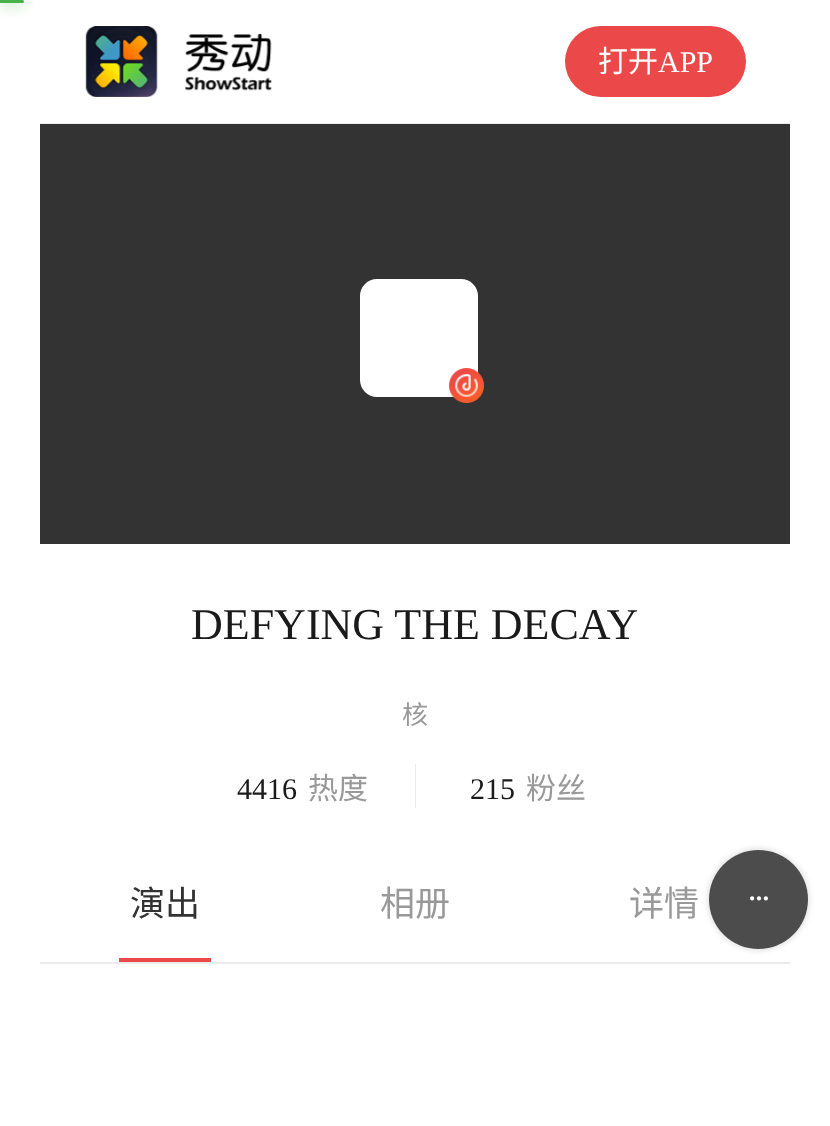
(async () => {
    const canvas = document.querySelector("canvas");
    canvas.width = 830;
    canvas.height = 1126;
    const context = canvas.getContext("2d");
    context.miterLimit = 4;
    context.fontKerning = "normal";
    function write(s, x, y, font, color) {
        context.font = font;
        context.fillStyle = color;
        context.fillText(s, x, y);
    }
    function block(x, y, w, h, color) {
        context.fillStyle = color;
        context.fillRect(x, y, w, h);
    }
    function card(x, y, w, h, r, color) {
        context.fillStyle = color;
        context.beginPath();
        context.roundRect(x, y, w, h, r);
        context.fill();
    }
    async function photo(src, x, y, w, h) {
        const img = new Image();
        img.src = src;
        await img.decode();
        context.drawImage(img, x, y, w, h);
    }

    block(0, 0, 830, 1126, "rgb(255, 255, 255)");
    context.fillStyle = "rgb(76, 175, 80)";
    context.filter = "blur(7.5px)";
    context.beginPath();
    context.roundRect(0, 0, 24, 3, 1.5);
    context.fill();
    context.filter = "none";
    context.fillStyle = "rgb(71, 177, 75)";
    context.beginPath();
    context.roundRect(0, 0, 24, 3, [0, 1.5, 1.5, 0]);
    context.fill();
    block(40, 123, 750, 1, "rgb(235, 235, 235)");
    await photo("media/1.png", 85, 26, 187, 71);
    card(565, 26, 181, 71, 35.5, "rgb(235, 72, 74)");
    write("打开", 598, 72, "30px Noto Sans CJK SC", "rgb(255, 255, 255)");
    write("APP", 658, 72, "30px Liberation Serif", "rgb(255, 255, 255)");
    block(40, 124, 750, 420, "rgb(51, 51, 51)");
    card(360, 279, 118, 118, 17, "rgb(255, 255, 255)");
    await photo("media/2.png", 449, 368, 35, 35);
    write("DEFYING THE DECAY", 191, 639, "44px Liberation Serif", "rgb(26, 26, 26)");
    write("核", 402, 724, "26px Noto Sans CJK SC", "rgb(153, 153, 153)");
    block(415, 764, 1, 44, "rgb(235, 235, 235)");
    write("4416", 237, 799, "30px Liberation Serif", "rgb(26, 26, 26)");
    write("热度", 308, 799, "30px Noto Sans CJK SC", "rgb(153, 153, 153)");
    write("215", 470, 799, "30px Liberation Serif", "rgb(26, 26, 26)");
    write("粉丝", 526, 799, "30px Noto Sans CJK SC", "rgb(153, 153, 153)");
    block(40, 962, 750, 2, "rgb(235, 235, 235)");
    block(119, 958, 92, 4, "rgb(235, 72, 74)");
    write("演出", 130, 916, "35px Noto Sans CJK SC", "rgb(51, 51, 51)");
    write("相册", 380, 916, "35px Noto Sans CJK SC", "rgb(153, 153, 153)");
    write("详情", 629, 916, "35px Noto Sans CJK SC", "rgb(153, 153, 153)");
    context.save();
    context.beginPath();
    context.moveTo(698, 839);
    context.lineTo(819, 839);
    context.lineTo(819, 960);
    context.lineTo(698, 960);
    context.closePath();
    context.moveTo(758.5, 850);
    context.bezierCurveTo(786, 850, 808, 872, 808, 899.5);
    context.bezierCurveTo(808, 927, 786, 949, 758.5, 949);
    context.bezierCurveTo(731, 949, 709, 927, 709, 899.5);
    context.bezierCurveTo(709, 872, 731, 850, 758.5, 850);
    context.closePath();
    context.clip("evenodd");
    context.fillStyle = "rgba(0, 0, 0, 0.1)";
    context.filter = "blur(2.5px)";
    context.beginPath();
    context.roundRect(707, 848, 103, 103, 51.5);
    context.fill();
    context.filter = "none";
    context.restore();
    context.fillStyle = "rgba(0, 0, 0, 0.7)";
    context.beginPath();
    context.arc(758.5, 899.5, 49.5, 0, Math.PI * 2);
    context.fill();
    await photo("media/3.png", 750, 896, 18, 5);
})();
